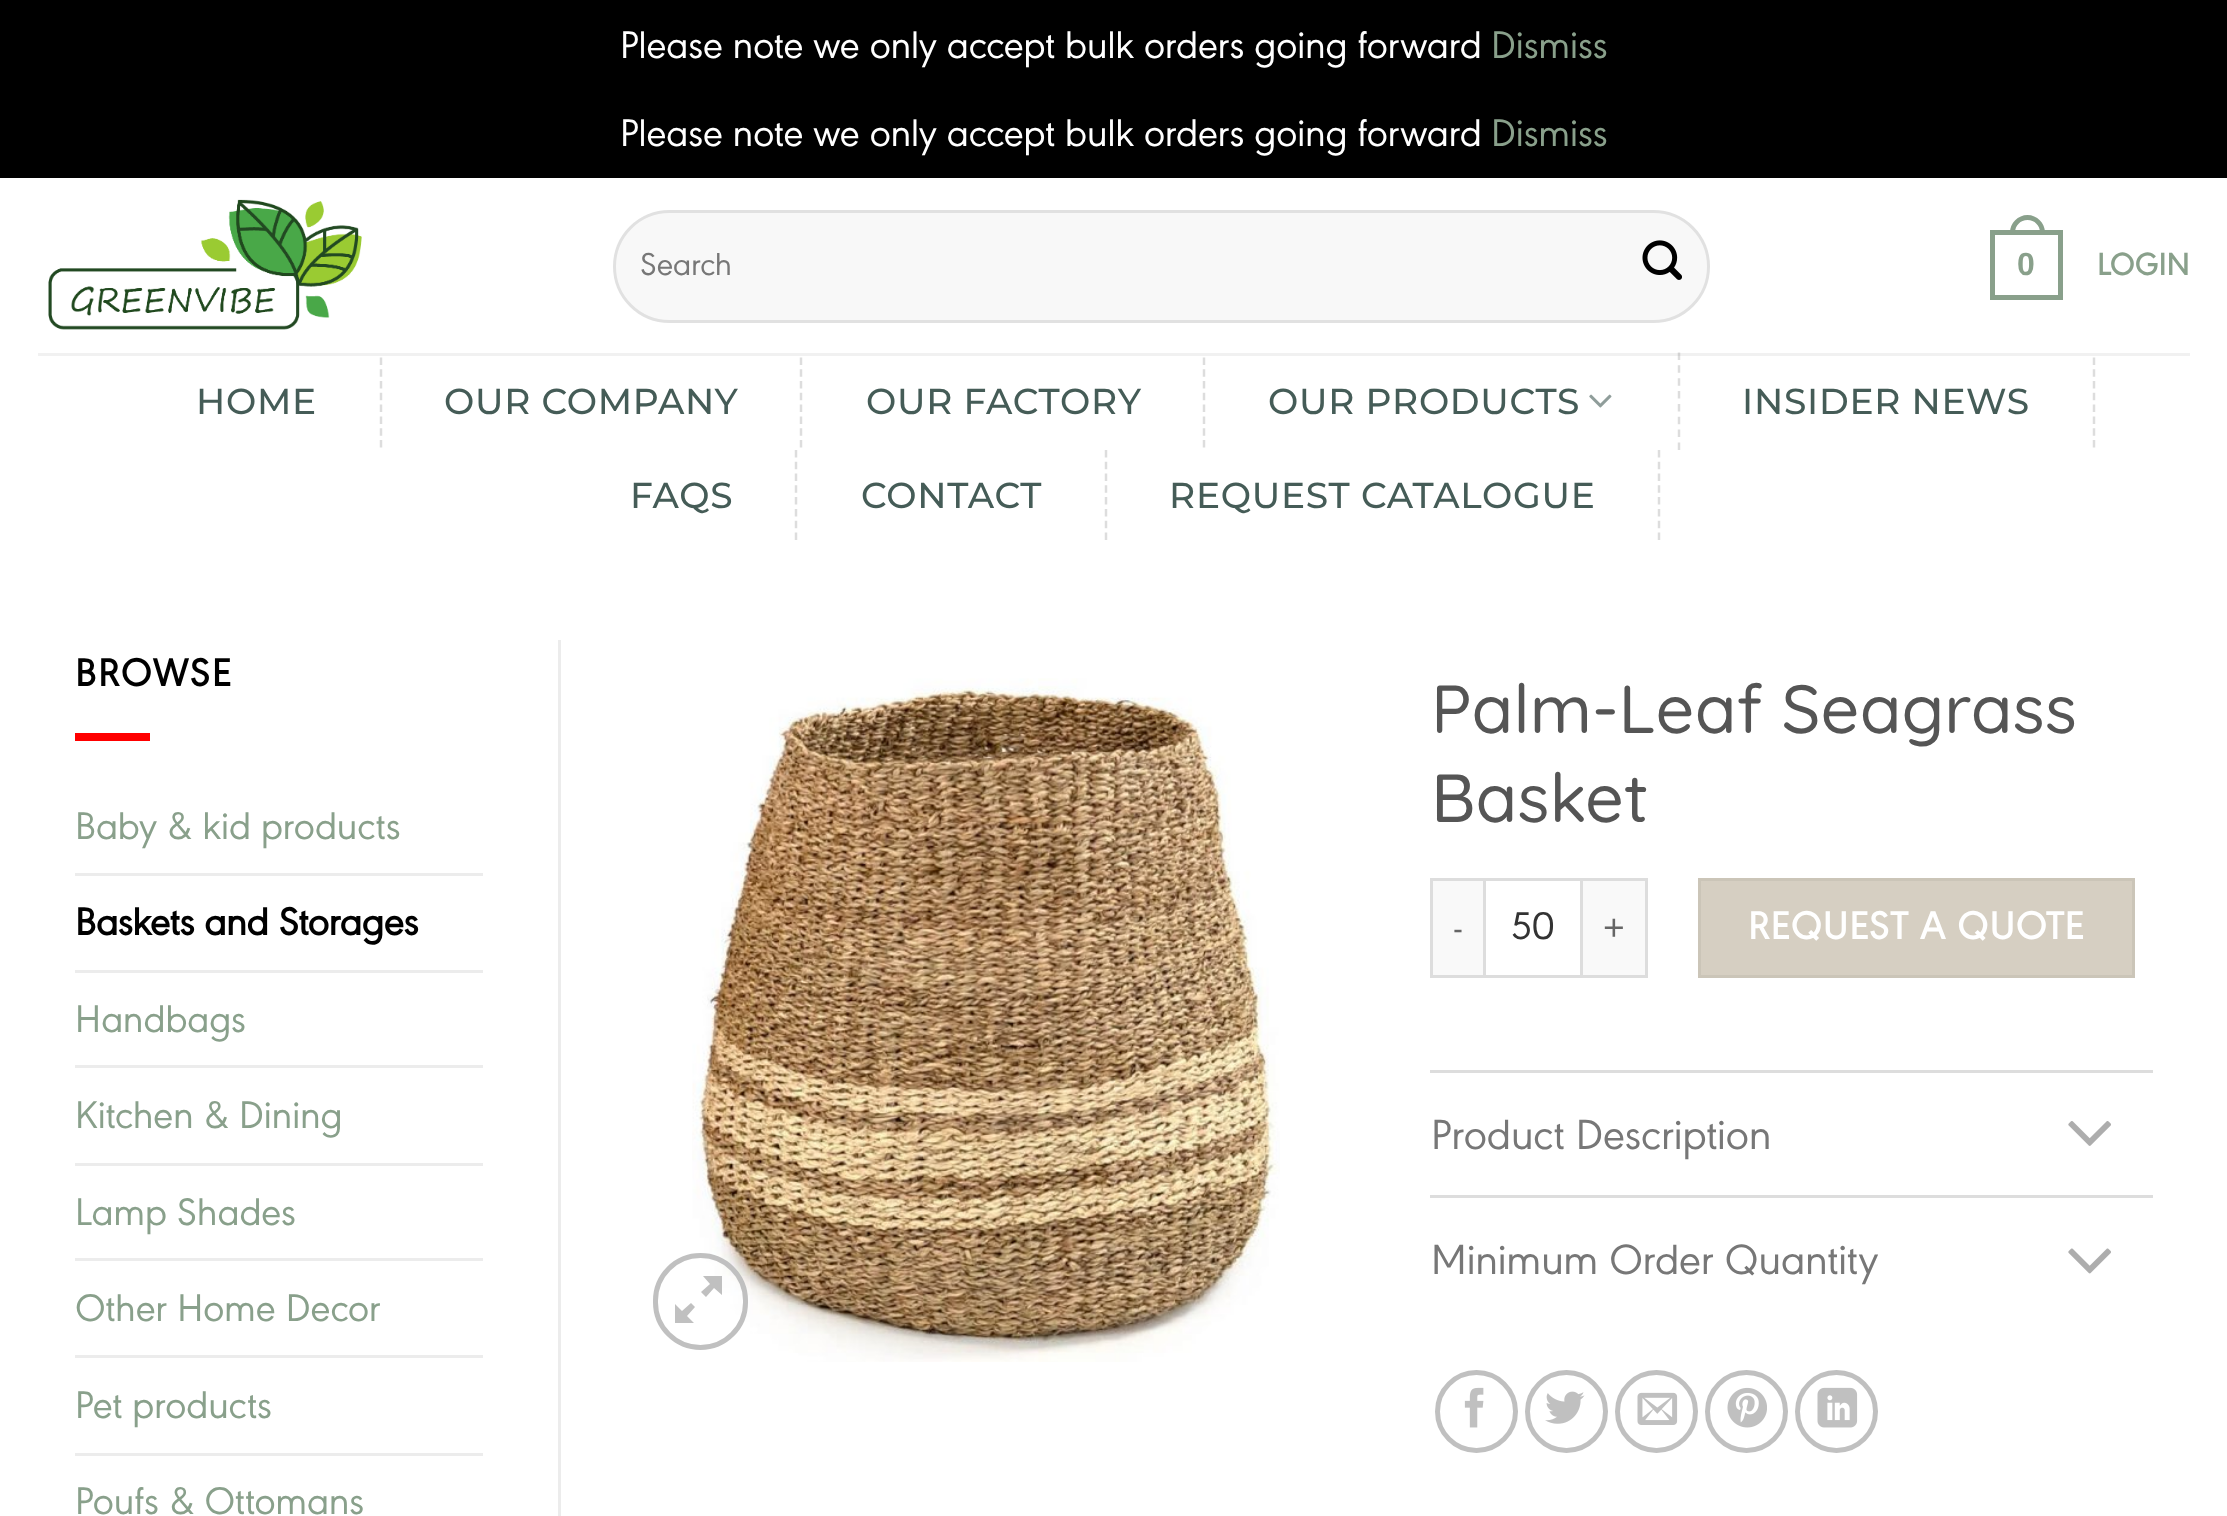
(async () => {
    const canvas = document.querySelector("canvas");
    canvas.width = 2227;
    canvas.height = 1516;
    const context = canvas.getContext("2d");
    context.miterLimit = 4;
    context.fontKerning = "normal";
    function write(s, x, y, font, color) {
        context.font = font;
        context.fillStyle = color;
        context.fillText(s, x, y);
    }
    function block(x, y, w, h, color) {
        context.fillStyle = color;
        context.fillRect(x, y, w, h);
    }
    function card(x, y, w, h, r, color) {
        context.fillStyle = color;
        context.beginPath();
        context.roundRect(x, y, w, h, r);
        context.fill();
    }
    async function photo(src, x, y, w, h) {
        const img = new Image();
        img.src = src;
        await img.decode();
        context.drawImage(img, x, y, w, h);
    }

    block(0, 0, 2227, 1516, "rgb(0, 0, 0)");
    write("Please note we only accept bulk orders going forward", 620, 58, "40px 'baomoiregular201'", "rgb(255, 255, 255)");
    write("Dismiss", 1491, 58, "40px 'baomoiregular201'", "rgb(137, 160, 139)");
    write("Please note we only accept bulk orders going forward", 620, 146, "40px 'baomoiregular201'", "rgb(255, 255, 255)");
    write("Dismiss", 1491, 146, "40px 'baomoiregular201'", "rgb(137, 160, 139)");
    block(0, 178, 2227, 1338, "rgb(255, 255, 255)");
    await photo("media/1.png", 48, 199, 314, 131);
    card(613, 210, 1097, 113, 56.5, "rgb(248, 248, 248)");
    context.beginPath();
    context.roundRect(614.5, 211.5, 1094, 110, 55);
    context.strokeStyle = "rgba(0, 0, 0, 0.09)";
    context.lineWidth = 3;
    context.stroke();
    write("Search", 640, 275, "33px 'baomoiregular201'", "rgb(119, 119, 119)");
    await photo("media/2.png", 1642, 240, 40, 40);
    context.strokeStyle = "rgb(137, 160, 139)";
    context.lineWidth = 5;
    context.strokeRect(1992.5, 232.5, 68, 65);
    context.fillStyle = "rgb(137, 160, 139)";
    context.beginPath();
    context.moveTo(2027.5, 215);
    context.bezierCurveTo(2037, 215, 2045, 223, 2045, 232.5);
    context.lineTo(2045, 235);
    context.lineTo(2010, 235);
    context.lineTo(2010, 232.5);
    context.bezierCurveTo(2010, 223, 2018, 215, 2027.5, 215);
    context.closePath();
    context.moveTo(2027.5, 220);
    context.bezierCurveTo(2034.5, 220, 2040, 225.5, 2040, 232.5);
    context.lineTo(2040, 235);
    context.lineTo(2015, 235);
    context.lineTo(2015, 232.5);
    context.bezierCurveTo(2015, 225.5, 2020.5, 220, 2027.5, 220);
    context.closePath();
    context.fill("evenodd");
    context.letterSpacing = "0.5px";
    write("0", 2017, 275, "bold 32px Liberation Sans", "rgb(137, 160, 139)");
    write("LOGIN", 2097, 275, "bold 32px 'baomoiregular201'", "rgb(137, 160, 139)");
    context.beginPath();
    context.moveTo(1679, 352.5);
    context.lineTo(1679, 450);
    context.strokeStyle = "rgb(221, 221, 221)";
    context.lineWidth = 2.5;
    context.setLineDash([7.5, 5.35]);
    context.stroke();
    block(38, 353, 2152, 3, "rgba(119, 119, 119, 0.1)");
    context.beginPath();
    context.moveTo(381, 357.5);
    context.lineTo(381, 447.5);
    context.setLineDash([7.5, 4.28]);
    context.stroke();
    context.letterSpacing = "0.75px";
    write("HOME", 196, 414, "500 36px Montserrat", "rgb(69, 92, 87)");
    context.beginPath();
    context.moveTo(801, 357.5);
    context.lineTo(801, 447.5);
    context.stroke();
    write("OUR COMPANY", 444, 414, "500 36px Montserrat", "rgb(69, 92, 87)");
    context.beginPath();
    context.moveTo(1204, 357.5);
    context.lineTo(1204, 447.5);
    context.stroke();
    write("OUR FACTORY", 866, 414, "500 36px Montserrat", "rgb(69, 92, 87)");
    write("OUR PRODUCTS", 1268, 414, "500 36px Montserrat", "rgb(69, 92, 87)");
    await photo("media/3.png", 1589, 394, 23, 14);
    context.beginPath();
    context.moveTo(2094, 357.5);
    context.lineTo(2094, 447.5);
    context.stroke();
    write("INSIDER NEWS", 1742, 414, "500 36px Montserrat", "rgb(69, 92, 87)");
    context.beginPath();
    context.moveTo(796, 450);
    context.lineTo(796, 540);
    context.stroke();
    write("FAQS", 630, 508, "500 36px Montserrat", "rgb(69, 92, 87)");
    context.beginPath();
    context.moveTo(1106, 450);
    context.lineTo(1106, 540);
    context.stroke();
    write("CONTACT", 861, 508, "500 36px Montserrat", "rgb(69, 92, 87)");
    context.beginPath();
    context.moveTo(1659, 450);
    context.lineTo(1659, 540);
    context.stroke();
    write("REQUEST CATALOGUE", 1169, 508, "500 36px Montserrat", "rgb(69, 92, 87)");
    context.letterSpacing = "2px";
    write("BROWSE", 75, 686, "bold 40px 'baomoiregular201'", "rgb(0, 0, 0)");
    block(75, 733, 75, 8, "rgb(255, 0, 0)");
    context.letterSpacing = "0px";
    write("Baby & kid products", 75, 839, "40px 'baomoiregular201'", "rgb(137, 160, 139)");
    block(75, 873, 408, 3, "rgb(236, 236, 236)");
    write("Baskets and Storages", 75, 935, "bold 40px 'baomoiregular201'", "rgb(0, 0, 0)");
    block(75, 970, 408, 3, "rgb(236, 236, 236)");
    write("Handbags", 75, 1032, "40px 'baomoiregular201'", "rgb(137, 160, 139)");
    block(75, 1065, 408, 3, "rgb(236, 236, 236)");
    write("Kitchen & Dining", 75, 1128, "40px 'baomoiregular201'", "rgb(137, 160, 139)");
    block(75, 1163, 408, 3, "rgb(236, 236, 236)");
    write("Lamp Shades", 75, 1225, "40px 'baomoiregular201'", "rgb(137, 160, 139)");
    block(75, 1258, 408, 3, "rgb(236, 236, 236)");
    write("Other Home Decor", 75, 1321, "40px 'baomoiregular201'", "rgb(137, 160, 139)");
    block(75, 1355, 408, 3, "rgb(236, 236, 236)");
    write("Pet products", 75, 1418, "40px 'baomoiregular201'", "rgb(137, 160, 139)");
    block(75, 1453, 408, 3, "rgb(236, 236, 236)");
    write("Poufs & Ottomans", 75, 1514, "40px 'baomoiregular201'", "rgb(137, 160, 139)");
    block(558, 640, 3, 876, "rgb(236, 236, 236)");
    await photo("media/4.png", 692, 678, 588, 684);
    context.beginPath();
    context.roundRect(655.5, 1255.5, 90, 92, 45);
    context.strokeStyle = "rgb(192, 192, 192)";
    context.lineWidth = 5;
    context.setLineDash([]);
    context.stroke();
    context.fillStyle = "rgb(192, 192, 192)";
    context.beginPath();
    context.moveTo(722, 1276);
    context.lineTo(722, 1295);
    context.lineTo(714, 1288);
    context.lineTo(706, 1297);
    context.lineTo(701, 1292);
    context.lineTo(710, 1284);
    context.lineTo(703, 1276);
    context.closePath();
    context.moveTo(695, 1307);
    context.lineTo(687, 1316);
    context.lineTo(694, 1323);
    context.lineTo(675, 1323);
    context.lineTo(675, 1304);
    context.lineTo(682, 1311);
    context.lineTo(691, 1303);
    context.closePath();
    context.fill();
    write("Palm-Leaf Seagrass", 1431, 733, "500 68px Quicksand", "rgb(85, 85, 85)");
    write("Basket", 1431, 822, "500 68px Quicksand", "rgb(85, 85, 85)");
    block(1433, 881, 50, 94, "rgb(249, 249, 249)");
    block(1430, 878, 53, 3, "rgb(221, 221, 221)");
    block(1430, 975, 53, 3, "rgb(221, 221, 221)");
    block(1430, 878, 3, 100, "rgb(221, 221, 221)");
    context.letterSpacing = "1px";
    write("-", 1453, 940, "39px 'baomoiregular201'", "rgb(102, 102, 102)");
    context.strokeStyle = "rgb(221, 221, 221)";
    context.lineWidth = 3;
    context.strokeRect(1484.5, 879.5, 97, 97);
    context.letterSpacing = "0px";
    write("50", 1511, 939, "40px 'baomoiregular201'", "rgb(51, 51, 51)");
    block(1583, 881, 62, 94, "rgb(249, 249, 249)");
    block(1583, 878, 65, 3, "rgb(221, 221, 221)");
    block(1645, 878, 3, 100, "rgb(221, 221, 221)");
    block(1583, 975, 65, 3, "rgb(221, 221, 221)");
    context.letterSpacing = "1px";
    write("+", 1603, 940, "39px 'baomoiregular201'", "rgb(102, 102, 102)");
    context.fillStyle = "rgb(214, 207, 194)";
    context.beginPath();
    context.rect(1699.5, 879.5, 434, 97);
    context.fill();
    context.strokeStyle = "rgb(203, 197, 184)";
    context.stroke();
    context.letterSpacing = "1.25px";
    write("REQUEST A QUOTE", 1748, 939, "bold 40px 'baomoiregular201'", "rgb(255, 255, 255)");
    block(1430, 1070, 723, 3, "rgb(221, 221, 221)");
    context.letterSpacing = "0px";
    write("Product Description", 1431, 1149, "44px 'baomoiregular201'", "rgb(119, 119, 119)");
    await photo("media/5.png", 2068, 1121, 43, 25);
    block(1430, 1195, 723, 3, "rgb(221, 221, 221)");
    write("Minimum Order Quantity", 1431, 1274, "44px 'baomoiregular201'", "rgb(119, 119, 119)");
    await photo("media/6.png", 2068, 1248, 43, 26);
    context.beginPath();
    context.arc(1476.5, 1411.5, 39, 0, Math.PI * 2);
    context.strokeStyle = "rgb(192, 192, 192)";
    context.lineWidth = 5;
    context.stroke();
    await photo("media/7.png", 1464, 1387, 20, 41);
    context.beginPath();
    context.arc(1566.5, 1411.5, 39, 0, Math.PI * 2);
    context.stroke();
    await photo("media/8.png", 1545, 1391, 40, 33);
    context.beginPath();
    context.arc(1656.5, 1411.5, 39, 0, Math.PI * 2);
    context.stroke();
    await photo("media/9.png", 1637, 1392, 41, 33);
    context.beginPath();
    context.arc(1746.5, 1411.5, 39, 0, Math.PI * 2);
    context.stroke();
    await photo("media/10.png", 1727, 1387, 40, 41);
    context.beginPath();
    context.arc(1836.5, 1411.5, 39, 0, Math.PI * 2);
    context.stroke();
    await photo("media/11.png", 1817, 1387, 41, 41);
})();
